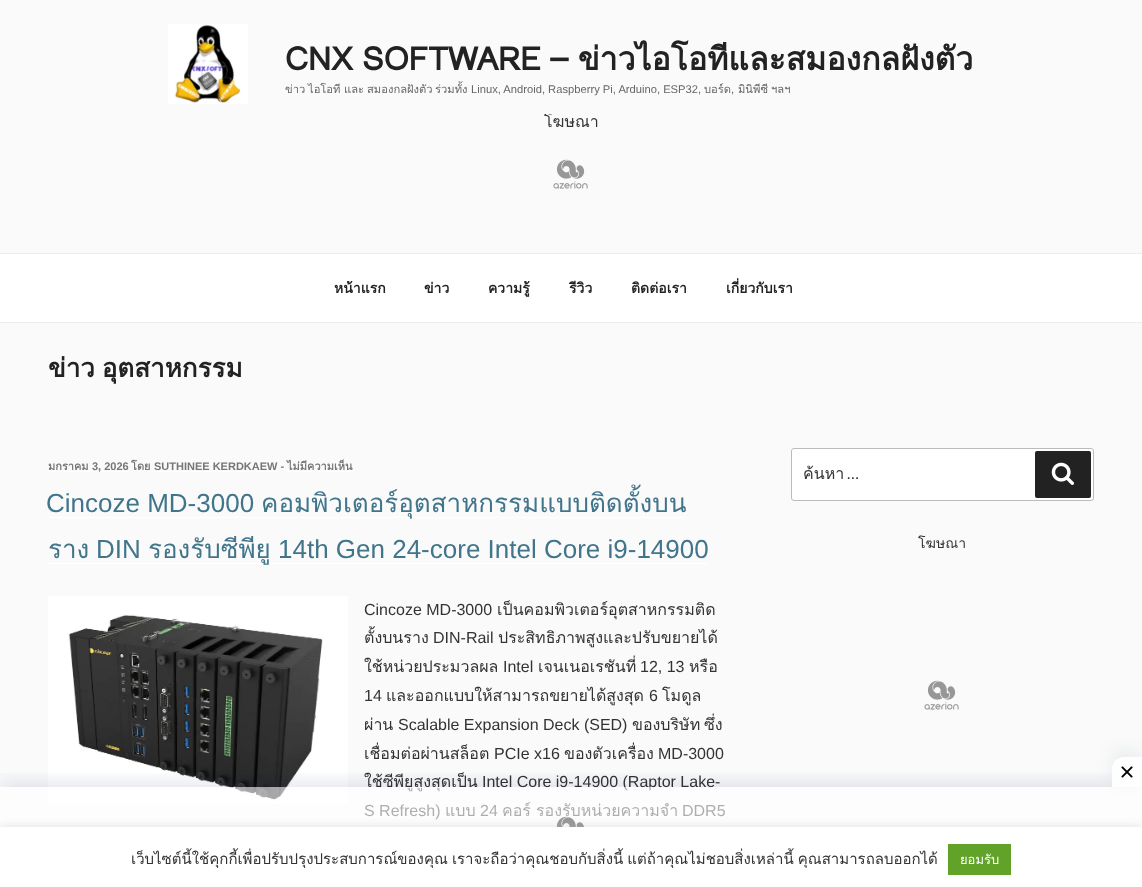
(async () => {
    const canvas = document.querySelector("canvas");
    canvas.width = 1142;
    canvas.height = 887;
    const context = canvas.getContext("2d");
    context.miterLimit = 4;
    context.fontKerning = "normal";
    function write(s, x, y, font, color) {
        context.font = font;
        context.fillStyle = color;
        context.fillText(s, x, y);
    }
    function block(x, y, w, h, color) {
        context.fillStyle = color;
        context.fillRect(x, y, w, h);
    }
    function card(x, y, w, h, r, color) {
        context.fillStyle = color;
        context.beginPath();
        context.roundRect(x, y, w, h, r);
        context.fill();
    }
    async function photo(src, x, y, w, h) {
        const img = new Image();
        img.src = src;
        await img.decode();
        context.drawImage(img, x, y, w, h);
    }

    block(0, 0, 1142, 887, "rgb(250, 250, 250)");
    await photo("media/1.png", 168, 24, 80, 80);
    context.wordSpacing = "-1px";
    write("CNX SOFTWARE – ข่าวไอโอทีและสมองกลฝังตัว", 285, 70, "bold 32px Loma", "rgb(34, 34, 34)");
    context.wordSpacing = "0px";
    write("ข่าว", 285, 93, "11.2px Loma", "rgb(102, 102, 102)");
    write("ไอโอที", 308, 93, "11.2px Loma", "rgb(102, 102, 102)");
    write("และ", 344, 93, "11.2px Loma", "rgb(102, 102, 102)");
    write("สมองกลฝังตัว", 367, 93, "11.2px Loma", "rgb(102, 102, 102)");
    write("ร่วมทั้ง", 435, 93, "11.2px Loma", "rgb(102, 102, 102)");
    write("Linux, Android, Raspberry Pi, Arduino, ESP32,", 471, 93, "11.2px Liberation Sans", "rgb(102, 102, 102)");
    write("บอร์ด", 704, 93, "11.2px Loma", "rgb(102, 102, 102)");
    write(",", 731, 93, "11.2px Liberation Sans", "rgb(102, 102, 102)");
    write("มินิพีซี", 738, 93, "11.2px Loma", "rgb(102, 102, 102)");
    write("ฯลฯ", 771, 93, "11.2px Loma", "rgb(102, 102, 102)");
    context.save();
    context.beginPath();
    context.rect(207, 114, 728, 106);
    context.clip();
    write("โฆษณา", 544, 127, "16px Loma", "rgb(51, 51, 51)");
    context.restore();
    await photo("media/2.png", 553, 159, 35, 30);
    block(0, 254, 1142, 68, "rgb(255, 255, 255)");
    block(0, 253, 1142, 1, "rgb(238, 238, 238)");
    block(0, 322, 1142, 1, "rgb(238, 238, 238)");
    write("หน้าแรก", 334, 293, "bold 14px Loma", "rgb(34, 34, 34)");
    write("ข่าว", 424, 293, "bold 14px Loma", "rgb(34, 34, 34)");
    write("ความรู้", 488, 293, "bold 14px Loma", "rgb(34, 34, 34)");
    write("รีวิว", 569, 293, "bold 14px Loma", "rgb(34, 34, 34)");
    write("ติดต่อเรา", 631, 293, "bold 14px Loma", "rgb(34, 34, 34)");
    write("เกี่ยวกับเรา", 726, 293, "bold 14px Loma", "rgb(34, 34, 34)");
    context.wordSpacing = "-2px";
    write("ข่าว อุตสาหกรรม", 48, 377, "bold 26px Loma", "rgb(34, 34, 34)");
    context.wordSpacing = "0px";
    write("มกราคม", 48, 470, "bold 11px Loma", "rgb(118, 118, 118)");
    block(48, 471, 80, 1, "rgb(255, 255, 255)");
    write("3, 2026", 92, 470, "bold 11px Liberation Sans", "rgb(118, 118, 118)");
    write("โดย", 131, 470, "bold 11px Loma", "rgb(118, 118, 118)");
    write("SUTHINEE KERDKAEW -", 154, 470, "bold 11px Liberation Sans", "rgb(118, 118, 118)");
    block(154, 471, 123, 1, "rgb(255, 255, 255)");
    write("ไม่มีความเห็น", 287, 470, "bold 11px Loma", "rgb(118, 118, 118)");
    block(287, 471, 66, 1, "rgb(255, 255, 255)");
    block(353, 457, 1, 1, "rgb(255, 255, 255)");
    write("Cincoze MD-3000", 46, 512, "26px Liberation Sans", "rgb(65, 117, 139)");
    block(46, 517, 641, 1, "rgb(255, 255, 255)");
    write("คอมพิวเตอร์อุตสาหกรรมแบบติดตั้งบน", 261, 512, "26px Loma", "rgb(65, 117, 139)");
    write("ราง", 48, 558, "26px Loma", "rgb(65, 117, 139)");
    block(48, 563, 661, 1, "rgb(255, 255, 255)");
    write("DIN", 96, 558, "26px Liberation Sans", "rgb(65, 117, 139)");
    write("รองรับซีพียู", 148, 558, "26px Loma", "rgb(65, 117, 139)");
    write("14th Gen 24-core Intel Core i9-14900", 278, 558, "26px Liberation Sans", "rgb(65, 117, 139)");
    await photo("media/3.png", 48, 596, 300, 208);
    write("Cincoze MD-3000", 364, 615, "16px Liberation Sans", "rgb(51, 51, 51)");
    write("เป็นคอมพิวเตอร์อุตสาหกรรมติด", 497, 615, "16px Loma", "rgb(51, 51, 51)");
    write("ตั้งบนราง", 364, 643, "16px Loma", "rgb(51, 51, 51)");
    write("DIN-Rail", 433, 643, "16px Liberation Sans", "rgb(51, 51, 51)");
    write("ประสิทธิภาพสูงและปรับขยายได้", 498, 643, "16px Loma", "rgb(51, 51, 51)");
    write("ใช้หน่วยประมวลผล", 364, 672, "16px Loma", "rgb(51, 51, 51)");
    write("Intel", 503, 672, "16px Liberation Sans", "rgb(51, 51, 51)");
    write("เจนเนอเรชันที่", 538, 672, "16px Loma", "rgb(51, 51, 51)");
    write("12, 13", 640, 672, "16px Liberation Sans", "rgb(51, 51, 51)");
    write("หรือ", 689, 672, "16px Loma", "rgb(51, 51, 51)");
    write("14", 364, 701, "16px Liberation Sans", "rgb(51, 51, 51)");
    write("และออกแบบให้สามารถขยายได้สูงสุด", 386, 701, "16px Loma", "rgb(51, 51, 51)");
    write("6", 649, 701, "16px Liberation Sans", "rgb(51, 51, 51)");
    write("โมดูล", 662, 701, "16px Loma", "rgb(51, 51, 51)");
    write("ผ่าน", 364, 730, "16px Loma", "rgb(51, 51, 51)");
    write("Scalable Expansion Deck (SED)", 398, 730, "16px Liberation Sans", "rgb(51, 51, 51)");
    write("ของบริษัท", 632, 730, "16px Loma", "rgb(51, 51, 51)");
    write("ซึ่ง", 704, 730, "16px Loma", "rgb(51, 51, 51)");
    write("เชื่อมต่อผ่านสล็อต", 364, 759, "16px Loma", "rgb(51, 51, 51)");
    write("PCIe x16", 494, 759, "16px Liberation Sans", "rgb(51, 51, 51)");
    write("ของตัวเครื่อง", 564, 759, "16px Loma", "rgb(51, 51, 51)");
    write("MD-3000", 658, 759, "16px Liberation Sans", "rgb(51, 51, 51)");
    write("ใช้ซีพียูสูงสุดเป็น", 364, 787, "16px Loma", "rgb(51, 51, 51)");
    write("Intel Core i9-14900 (Raptor Lake-", 482, 787, "16px Liberation Sans", "rgb(51, 51, 51)");
    write("S Refresh)", 364, 816, "16px Liberation Sans", "rgb(51, 51, 51)");
    write("แบบ", 445, 816, "16px Loma", "rgb(51, 51, 51)");
    write("24", 480, 816, "16px Liberation Sans", "rgb(51, 51, 51)");
    write("คอร์", 502, 816, "16px Loma", "rgb(51, 51, 51)");
    write("รองรับหน่วยความจำ", 536, 816, "16px Loma", "rgb(51, 51, 51)");
    write("DDR5", 682, 816, "16px Liberation Sans", "rgb(51, 51, 51)");
    context.fillStyle = "rgb(255, 255, 255)";
    context.beginPath();
    context.roundRect(791.5, 448.5, 302, 52, 2.5);
    context.fill();
    context.strokeStyle = "rgb(187, 187, 187)";
    context.stroke();
    context.save();
    context.beginPath();
    context.rect(803, 461, 275, 25);
    context.clip();
    write("ค้นหา", 803, 479, "16px Loma", "rgb(51, 51, 51)");
    context.restore();
    write("…", 847, 479, "16px Libre Franklin", "rgb(51, 51, 51)");
    card(1035, 451, 56, 47, 2, "rgb(34, 34, 34)");
    await photo("media/4.png", 1051, 462, 23, 23);
    write("โฆษณา", 918, 548, "14px Loma", "rgb(51, 51, 51)");
    await photo("media/5.png", 924, 680, 35, 30);
    context.save();
    context.beginPath();
    context.rect(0, 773, 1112, 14);
    context.clip();
    context.fillStyle = "rgba(9, 32, 76, 0.1)";
    context.filter = "blur(9px)";
    context.beginPath();
    context.rect(0, 781, 1142, 100);
    context.fill();
    context.filter = "none";
    context.restore();
    block(0, 787, 1142, 40, "rgba(255, 255, 255, 0.6)");
    context.fillStyle = "rgba(9, 32, 76, 0.08)";
    context.filter = "blur(9px)";
    context.beginPath();
    context.roundRect(1112, 751, 30, 30, 12);
    context.fill();
    context.filter = "none";
    context.fillStyle = "rgb(254, 254, 254)";
    context.beginPath();
    context.roundRect(1112, 757, 30, 30, [12, 0, 0, 0]);
    context.fill();
    await photo("media/6.png", 1121, 766, 12, 12);
    await photo("media/7.png", 556, 816, 28, 11);
    context.fillStyle = "rgba(172, 171, 171, 0.3)";
    context.filter = "blur(5px)";
    context.beginPath();
    context.rect(0, 826, 1142, 60);
    context.fill();
    context.filter = "none";
    block(0, 827, 1142, 60, "rgb(255, 255, 255)");
    context.wordSpacing = "-1px";
    write("เว็บไซต์นี้ใช้คุกกี้เพื่อปรับปรุงประสบการณ์ของคุณ เราจะถือว่าคุณชอบกับสิ่งนี้ แต่ถ้าคุณไม่ชอบสิ่งเหล่านี้ คุณสามารถลบออกได้", 131, 864, "15px Loma", "rgb(51, 51, 51)");
    block(948, 844, 63, 31, "rgb(97, 162, 41)");
    context.wordSpacing = "0px";
    write("ยอมรับ", 960, 864, "13px Loma", "rgb(255, 255, 255)");
})();
